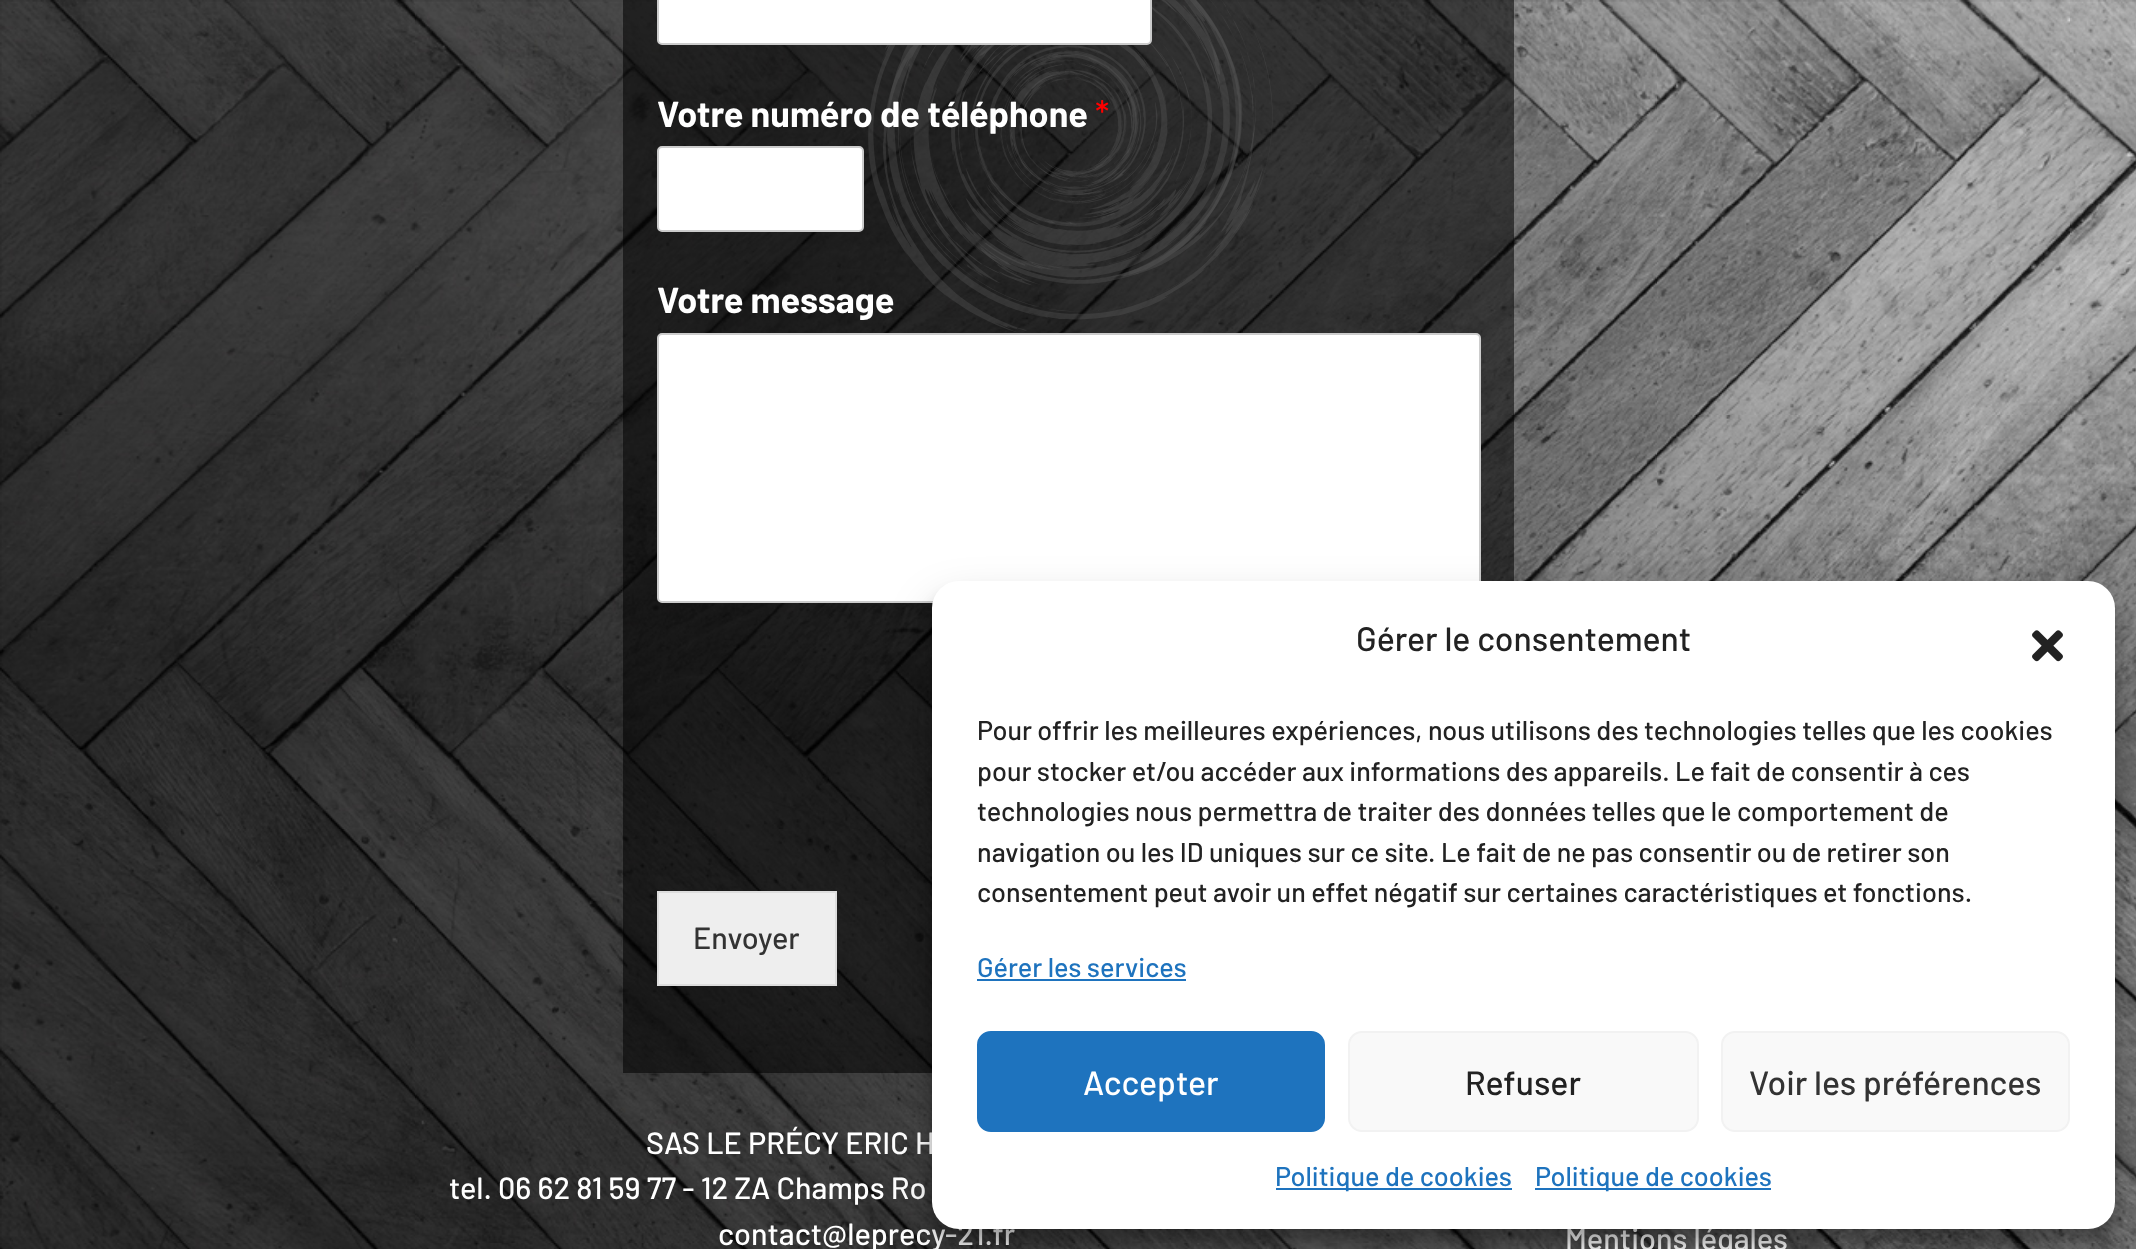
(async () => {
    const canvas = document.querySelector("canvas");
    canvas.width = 2136;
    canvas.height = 1249;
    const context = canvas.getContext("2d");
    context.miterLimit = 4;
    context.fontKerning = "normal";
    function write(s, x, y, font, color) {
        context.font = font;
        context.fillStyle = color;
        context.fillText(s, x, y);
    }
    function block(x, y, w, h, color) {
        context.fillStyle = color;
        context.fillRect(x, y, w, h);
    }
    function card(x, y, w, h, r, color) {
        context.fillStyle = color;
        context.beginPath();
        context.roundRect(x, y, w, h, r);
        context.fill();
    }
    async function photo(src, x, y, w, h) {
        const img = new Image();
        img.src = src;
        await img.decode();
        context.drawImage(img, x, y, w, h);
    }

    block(0, 0, 2136, 1249, "rgb(255, 255, 255)");
    await photo("media/1.png", 0, 0, 2136, 1249);
    await photo("media/2.png", 868, 0, 405, 333);
    block(623, 0, 891, 1073, "rgba(0, 0, 0, 0.55)");
    context.fillStyle = "rgb(255, 255, 255)";
    context.beginPath();
    context.roundRect(658, -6, 493, 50, 4);
    context.fill();
    context.strokeStyle = "rgb(204, 204, 204)";
    context.lineWidth = 2;
    context.stroke();
    write("Votre numéro de téléphone", 657, 127, "bold 36px Barlow", "rgb(255, 255, 255)");
    write("*", 1095, 127, "500 36px Barlow", "rgb(255, 0, 0)");
    context.fillStyle = "rgb(255, 255, 255)";
    context.beginPath();
    context.roundRect(658, 147, 205, 84, 4);
    context.fill();
    context.stroke();
    write("Votre message", 657, 313, "bold 36px Barlow", "rgb(255, 255, 255)");
    context.beginPath();
    context.roundRect(658, 334, 822, 268, 4);
    context.fill();
    context.stroke();
    context.fillStyle = "rgb(238, 238, 238)";
    context.beginPath();
    context.rect(658, 892, 178, 93);
    context.fill();
    context.strokeStyle = "rgb(221, 221, 221)";
    context.stroke();
    write("Envoyer", 693, 949, "500 30.6px Barlow", "rgb(51, 51, 51)");
    write("SAS LE PRÉCY ERIC H", 646, 1154, "500 30.6px Barlow", "rgb(255, 255, 255)");
    write("tel. 06 62 81 59 77 - 12 ZA Champs Ro", 449, 1199, "500 30.6px Barlow", "rgb(255, 255, 255)");
    write("contact@leprecy-21.fr", 718, 1245, "500 30.6px Barlow", "rgb(255, 255, 255)");
    write("Mentions légales", 1565, 1250, "500 30.6px Barlow", "rgb(255, 255, 255)");
    context.fillStyle = "rgba(0, 0, 0, 0.23)";
    context.filter = "blur(7px)";
    context.beginPath();
    context.roundRect(932, 594, 1183, 648, 27);
    context.fill();
    context.filter = "none";
    context.fillStyle = "rgba(0, 0, 0, 0.19)";
    context.filter = "blur(22.5px)";
    context.beginPath();
    context.roundRect(932, 603, 1183, 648, 27);
    context.fill();
    context.filter = "none";
    card(932, 581, 1183, 648, 27, "rgb(255, 255, 255)");
    write("Gérer le consentement", 1356, 651, "500 33.75px Barlow", "rgb(34, 34, 34)");
    await photo("media/3.png", 2032, 630, 31, 32);
    write("Pour offrir les meilleures expériences, nous utilisons des technologies telles que les cookies", 977, 740, "500 27px Barlow", "rgb(34, 34, 34)");
    write("pour stocker et/ou accéder aux informations des appareils. Le fait de consentir à ces", 977, 781, "500 27px Barlow", "rgb(34, 34, 34)");
    write("technologies nous permettra de traiter des données telles que le comportement de", 977, 821, "500 27px Barlow", "rgb(34, 34, 34)");
    write("navigation ou les ID uniques sur ce site. Le fait de ne pas consentir ou de retirer son", 977, 862, "500 27px Barlow", "rgb(34, 34, 34)");
    write("consentement peut avoir un effet négatif sur certaines caractéristiques et fonctions.", 977, 902, "500 27px Barlow", "rgb(34, 34, 34)");
    write("Gérer les services", 977, 977, "500 27px Barlow", "rgb(30, 115, 190)");
    block(977, 979, 209, 2, "rgb(30, 115, 190)");
    context.beginPath();
    context.roundRect(978, 1032, 346, 99, 13);
    context.fill();
    context.strokeStyle = "rgb(30, 115, 190)";
    context.stroke();
    write("Accepter", 1083, 1095, "500 33.75px Barlow", "rgb(255, 255, 255)");
    context.fillStyle = "rgb(249, 249, 249)";
    context.beginPath();
    context.roundRect(1349, 1032, 349, 99, 13);
    context.fill();
    context.strokeStyle = "rgb(242, 242, 242)";
    context.stroke();
    write("Refuser", 1465, 1095, "500 33.75px Barlow", "rgb(34, 34, 34)");
    context.fillStyle = "rgb(249, 249, 249)";
    context.beginPath();
    context.roundRect(1722, 1032, 347, 99, 13);
    context.fill();
    context.stroke();
    write("Voir les préférences", 1749, 1095, "500 33.75px Barlow", "rgb(51, 51, 51)");
    block(1276, 1188, 236, 2, "rgb(30, 115, 190)");
    write("Politique de cookies", 1275, 1186, "500 27px Barlow", "rgb(30, 115, 190)");
    block(1535, 1188, 236, 2, "rgb(30, 115, 190)");
    write("Politique de cookies", 1535, 1186, "500 27px Barlow", "rgb(30, 115, 190)");
})();
